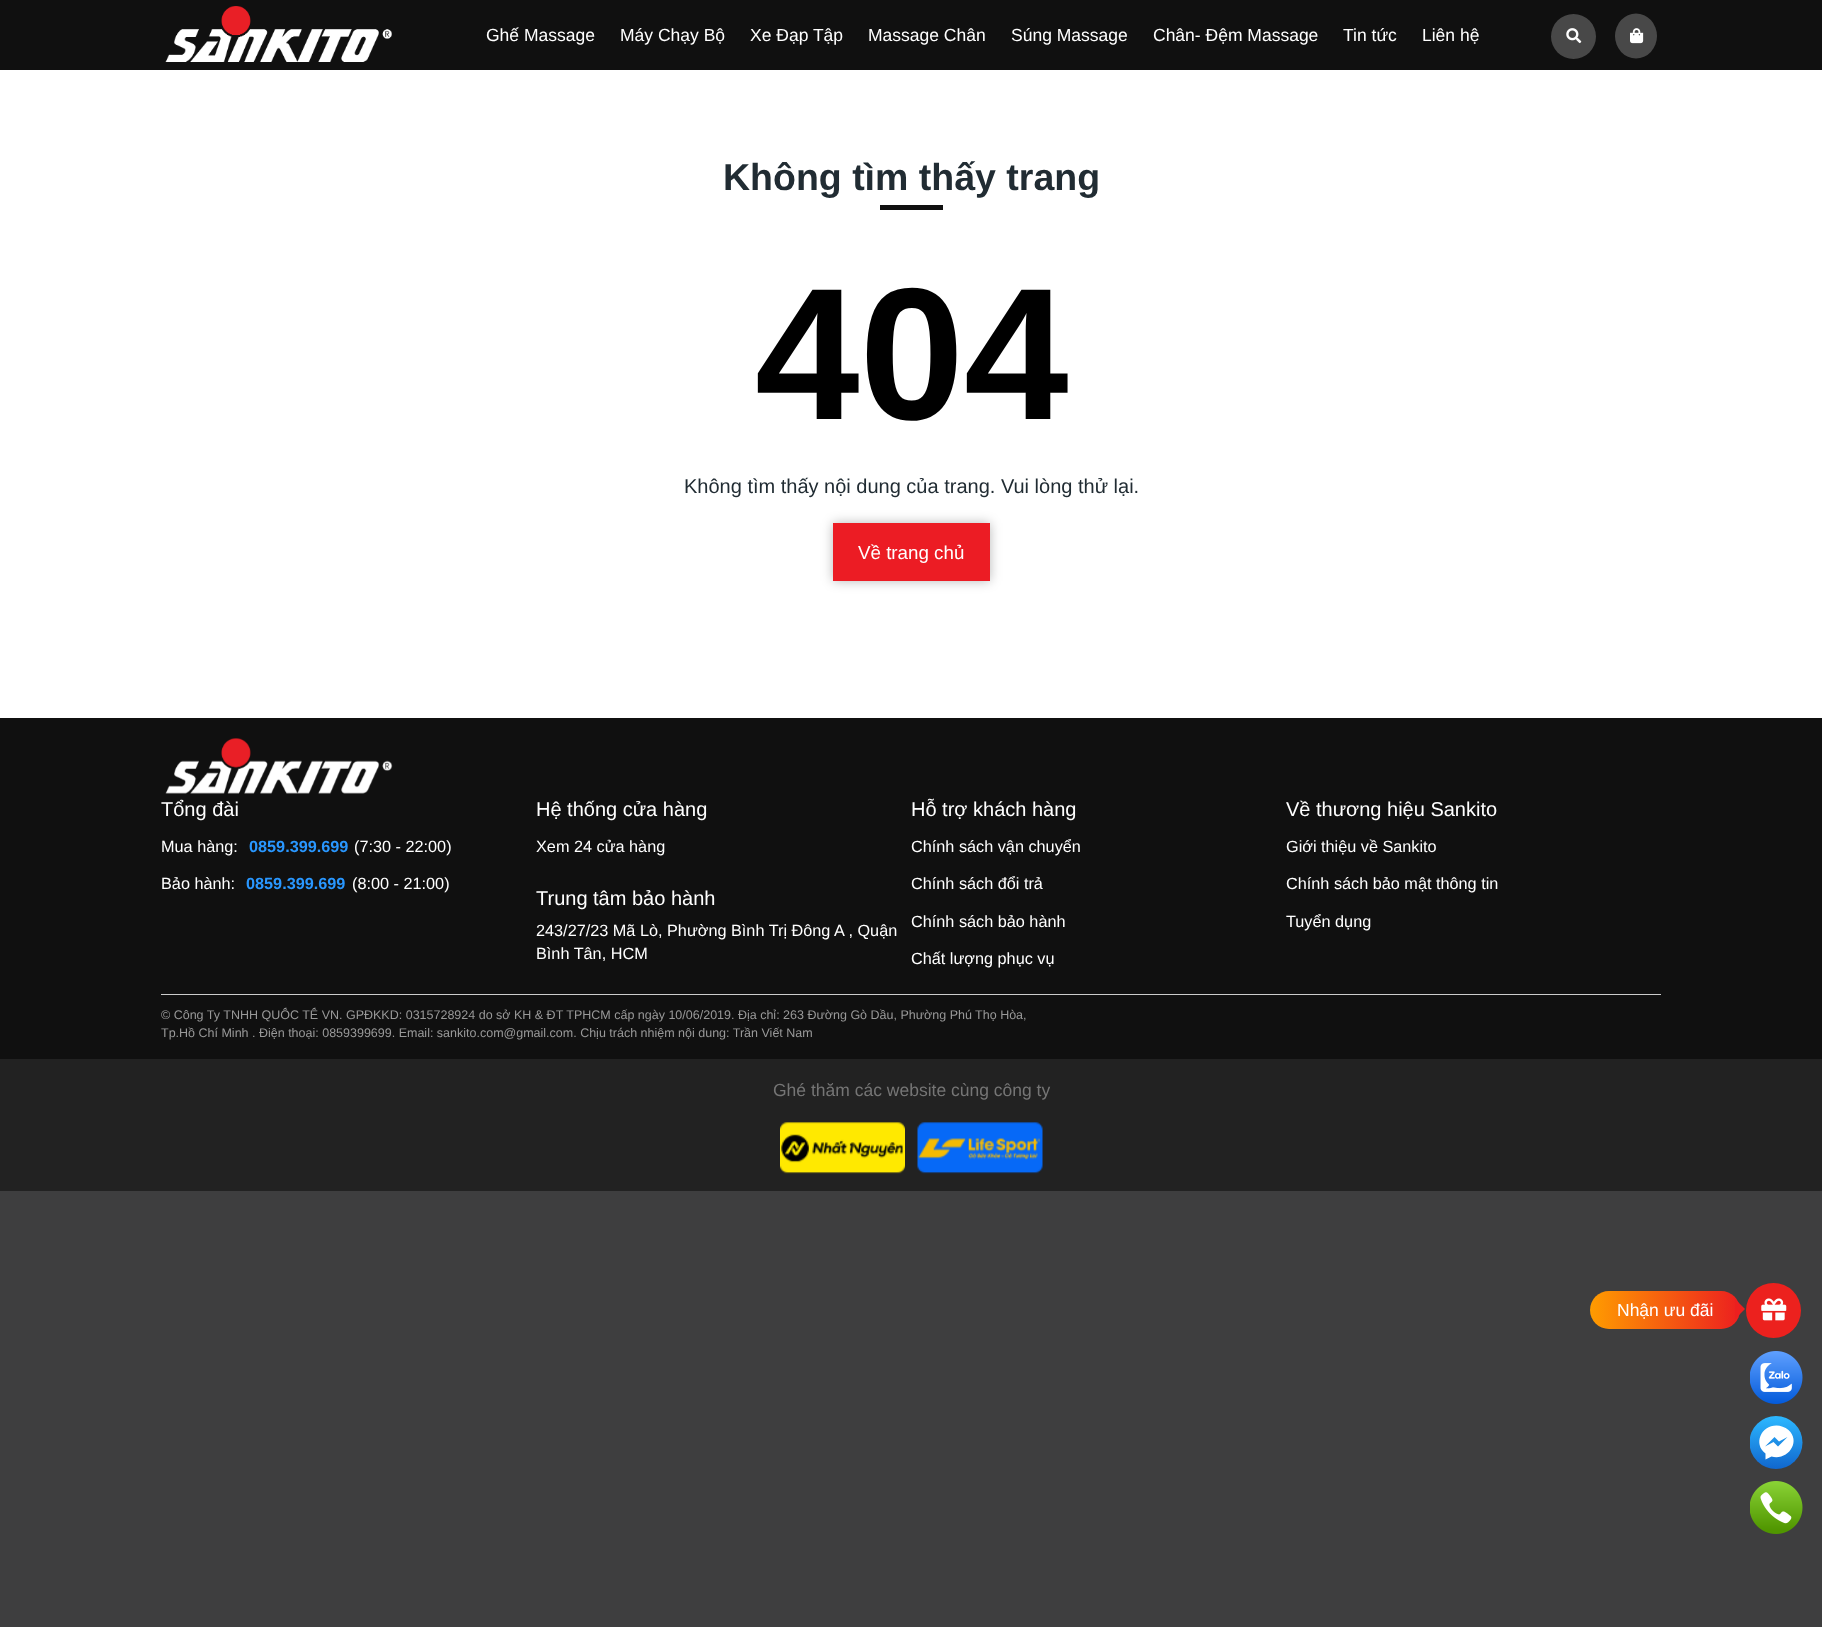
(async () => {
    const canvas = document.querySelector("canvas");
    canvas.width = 1822;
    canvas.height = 1627;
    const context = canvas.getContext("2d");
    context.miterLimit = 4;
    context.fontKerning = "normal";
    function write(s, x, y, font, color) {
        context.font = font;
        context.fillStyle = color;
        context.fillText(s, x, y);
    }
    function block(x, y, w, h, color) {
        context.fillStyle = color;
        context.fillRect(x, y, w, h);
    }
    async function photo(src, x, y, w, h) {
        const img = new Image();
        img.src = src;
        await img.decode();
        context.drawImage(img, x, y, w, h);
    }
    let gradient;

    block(0, 0, 1822, 1627, "rgb(62, 62, 63)");
    block(0, 0, 1822, 70, "rgb(16, 16, 16)");
    await photo("media/1.png", 165, 6, 227, 56);
    write("Ghế Massage", 486, 41, "17.5px Liberation Sans", "rgb(255, 255, 255)");
    write("Máy Chạy Bộ", 620, 41, "17.5px Liberation Sans", "rgb(255, 255, 255)");
    write("Xe Đạp Tập", 750, 41, "17.5px Liberation Sans", "rgb(255, 255, 255)");
    write("Massage Chân", 868, 41, "17.5px Liberation Sans", "rgb(255, 255, 255)");
    write("Súng Massage", 1011, 41, "17.5px Liberation Sans", "rgb(255, 255, 255)");
    write("Chân- Đệm Massage", 1153, 41, "17.5px Liberation Sans", "rgb(255, 255, 255)");
    write("Tin tức", 1343, 41, "17.5px Liberation Sans", "rgb(255, 255, 255)");
    write("Liên hệ", 1422, 41, "17.5px Liberation Sans", "rgb(255, 255, 255)");
    context.fillStyle = "rgb(72, 72, 72)";
    context.beginPath();
    context.arc(1573.5, 36.5, 22.5, 0, Math.PI * 2);
    context.fill();
    await photo("media/2.png", 1566, 28, 16, 16);
    context.beginPath();
    context.ellipse(1636, 36, 21, 22.5, 0, 0, Math.PI * 2);
    context.fill();
    await photo("media/3.png", 1630, 28, 14, 16);
    block(0, 70, 1822, 648, "rgb(255, 255, 255)");
    write("Không tìm thấy trang", 723, 190, "bold 37.5px Liberation Sans", "rgb(33, 44, 51)");
    block(880, 205, 63, 5, "rgb(16, 16, 16)");
    write("404", 755, 419, "bold 188px Liberation Sans", "rgb(0, 0, 0)");
    write("Không tìm thấy nội dung của trang. Vui lòng thử lại.", 684, 493, "20px Liberation Sans", "rgb(33, 44, 51)");
    context.fillStyle = "rgba(0, 0, 0, 0.28)";
    context.filter = "blur(6px)";
    context.beginPath();
    context.rect(833, 523, 157, 58);
    context.fill();
    context.filter = "none";
    block(833, 523, 157, 58, "rgb(236, 28, 36)");
    write("Về trang chủ", 858, 559, "18.75px Liberation Sans", "rgb(255, 255, 255)");
    block(0, 718, 1822, 341, "rgb(16, 16, 16)");
    await photo("media/4.png", 165, 738, 228, 56);
    write("Tổng đài", 161, 816, "20px Liberation Sans", "rgb(255, 255, 255)");
    write("Mua hàng:", 161, 852, "16.25px Liberation Sans", "rgb(255, 255, 255)");
    write("0859.399.699", 249, 852, "bold 16.25px Liberation Sans", "rgb(41, 151, 255)");
    write("(7:30 - 22:00)", 354, 852, "16.25px Liberation Sans", "rgb(255, 255, 255)");
    write("Bảo hành:", 161, 889, "16.25px Liberation Sans", "rgb(255, 255, 255)");
    write("0859.399.699", 246, 889, "bold 16.25px Liberation Sans", "rgb(41, 151, 255)");
    write("(8:00 - 21:00)", 352, 889, "16.25px Liberation Sans", "rgb(255, 255, 255)");
    write("Hệ thống cửa hàng", 536, 816, "20px Liberation Sans", "rgb(255, 255, 255)");
    write("Xem 24 cửa hàng", 536, 852, "16.25px Liberation Sans", "rgb(255, 255, 255)");
    write("Trung tâm bảo hành", 536, 905, "20px Liberation Sans", "rgb(255, 255, 255)");
    write("243/27/23 Mã Lò, Phường Bình Trị Đông A , Quận", 536, 936, "16.25px Liberation Sans", "rgb(255, 255, 255)");
    write("Bình Tân, HCM", 536, 959, "16.25px Liberation Sans", "rgb(255, 255, 255)");
    write("Hỗ trợ khách hàng", 911, 816, "20px Liberation Sans", "rgb(255, 255, 255)");
    write("Chính sách vận chuyển", 911, 852, "16.25px Liberation Sans", "rgb(255, 255, 255)");
    write("Chính sách đổi trả", 911, 889, "16.25px Liberation Sans", "rgb(255, 255, 255)");
    write("Chính sách bảo hành", 911, 927, "16.25px Liberation Sans", "rgb(255, 255, 255)");
    write("Chất lượng phục vụ", 911, 964, "16.25px Liberation Sans", "rgb(255, 255, 255)");
    write("Về thương hiệu Sankito", 1286, 816, "20px Liberation Sans", "rgb(255, 255, 255)");
    write("Giới thiệu về Sankito", 1286, 852, "16.25px Liberation Sans", "rgb(255, 255, 255)");
    write("Chính sách bảo mật thông tin", 1286, 889, "16.25px Liberation Sans", "rgb(255, 255, 255)");
    write("Tuyển dụng", 1286, 927, "16.25px Liberation Sans", "rgb(255, 255, 255)");
    block(161, 994, 1500, 1, "rgb(204, 204, 204)");
    write("© Công Ty TNHH QUỐC TẾ VN. GPĐKKD: 0315728924 do sở KH & ĐT TPHCM cấp ngày 10/06/2019. Địa chỉ: 263 Đường Gò Dầu, Phường Phú Thọ Hòa,", 161, 1019, "12.5px Liberation Sans", "rgb(153, 153, 153)");
    write("Tp.Hồ Chí Minh . Điện thoại: 0859399699. Email: sankito.com@gmail.com. Chịu trách nhiệm nội dung: Trần Viết Nam", 161, 1037, "12.5px Liberation Sans", "rgb(153, 153, 153)");
    block(0, 1059, 1822, 132, "rgb(34, 34, 34)");
    write("Ghé thăm các website cùng công ty", 773, 1096, "17.5px Liberation Sans", "rgb(117, 117, 117)");
    await photo("media/5.png", 780, 1122, 125, 52);
    await photo("media/6.png", 917, 1122, 126, 52);
    gradient = context.createLinearGradient(1740, 1310, 1590, 1310);
    gradient.addColorStop(0, "rgb(236, 31, 31)");
    gradient.addColorStop(1, "rgb(255, 156, 0)");
    context.fillStyle = gradient;
    context.beginPath();
    context.roundRect(1590, 1291, 150, 38, 19);
    context.fill();
    write("Nhận ưu đãi", 1617, 1316, "17.5px Liberation Sans", "rgb(255, 255, 255)");
    context.fillStyle = "rgb(236, 31, 31)";
    context.beginPath();
    context.moveTo(1735, 1319);
    context.lineTo(1735, 1299);
    context.lineTo(1745, 1309);
    context.closePath();
    context.fill();
    context.fillStyle = "rgb(236, 33, 30)";
    context.beginPath();
    context.arc(1773.5, 1310.5, 27.5, 0, Math.PI * 2);
    context.fill();
    await photo("media/7.png", 1761, 1298, 26, 23);
    await photo("media/8.png", 1750, 1351, 53, 53);
    context.save();
    context.beginPath();
    context.rect(1750, 1416, 53, 53);
    context.clip();
    gradient = context.createLinearGradient(1776, 1468, 1776, 1417);
    gradient.addColorStop(0, "rgb(17, 104, 207)");
    gradient.addColorStop(1, "rgb(44, 183, 255)");
    context.fillStyle = gradient;
    context.beginPath();
    context.arc(1776, 1442.5, 26.5, 0, Math.PI * 2);
    context.fill();
    context.restore();
    context.fillStyle = "rgb(255, 255, 255)";
    context.beginPath();
    context.moveTo(1776.5, 1425.5);
    context.bezierCurveTo(1761, 1425.5, 1753, 1444, 1765.5, 1453.5);
    context.lineTo(1765.5, 1459.5);
    context.lineTo(1771.5, 1456.5);
    context.bezierCurveTo(1787.5, 1461, 1801.5, 1442, 1788.5, 1430);
    context.bezierCurveTo(1785, 1427, 1780.5, 1425.5, 1776.5, 1425.5);
    context.closePath();
    context.moveTo(1778, 1446.5);
    context.lineTo(1773.5, 1442);
    context.lineTo(1765, 1446.5);
    context.lineTo(1774.5, 1437);
    context.lineTo(1779, 1441.5);
    context.lineTo(1787.5, 1437);
    context.closePath();
    context.fill("evenodd");
    await photo("media/9.png", 1750, 1481, 53, 53);
})();
